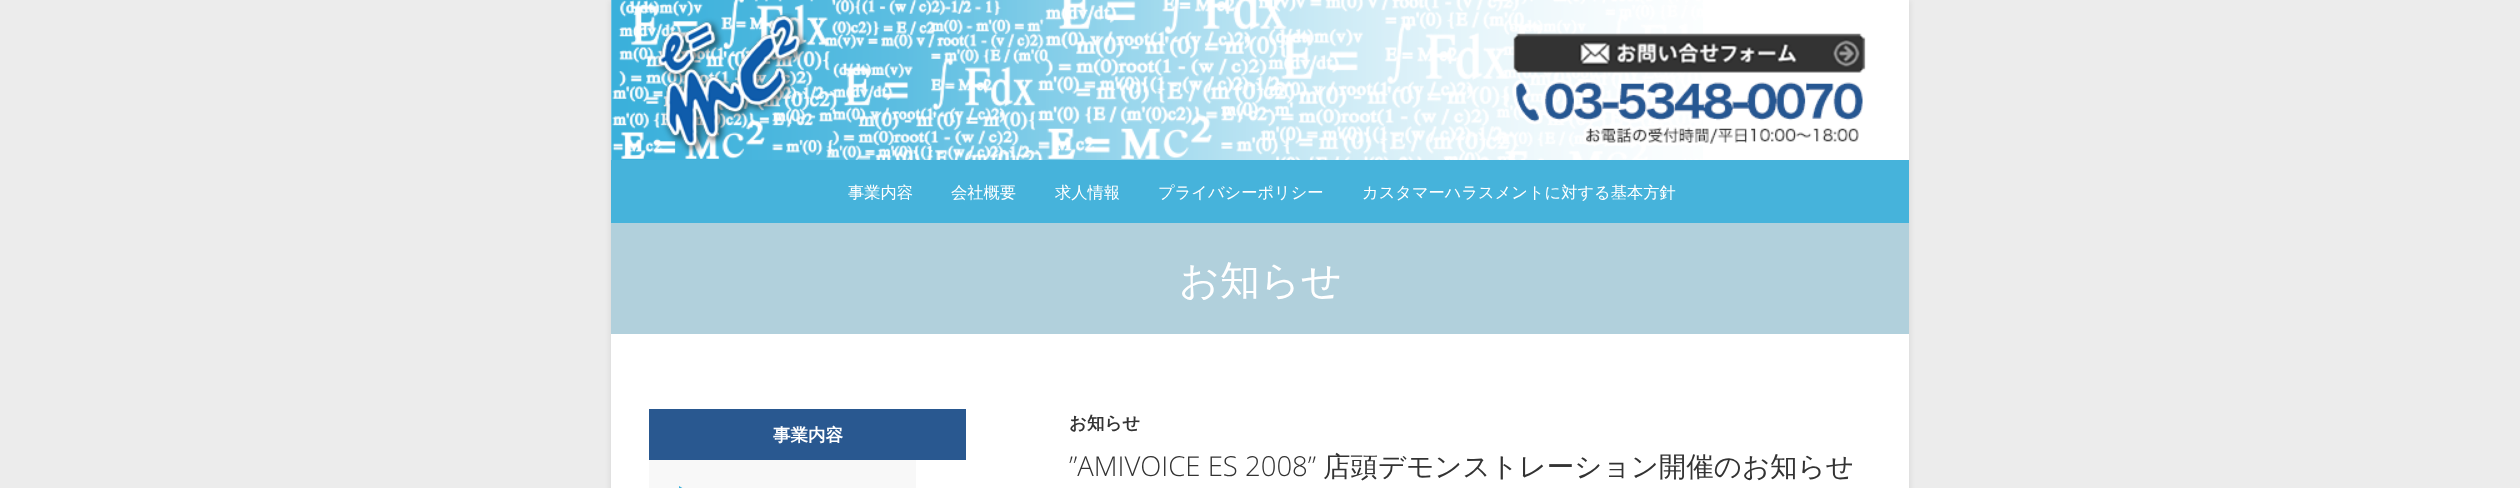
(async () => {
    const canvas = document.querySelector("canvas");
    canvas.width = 2520;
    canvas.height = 488;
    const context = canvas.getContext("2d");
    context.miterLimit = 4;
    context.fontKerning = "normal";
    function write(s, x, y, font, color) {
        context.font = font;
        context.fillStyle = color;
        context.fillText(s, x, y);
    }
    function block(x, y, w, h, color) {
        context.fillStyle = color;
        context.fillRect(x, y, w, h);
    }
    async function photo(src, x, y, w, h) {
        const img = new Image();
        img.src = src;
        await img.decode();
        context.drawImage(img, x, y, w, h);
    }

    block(0, 0, 2520, 488, "rgb(236, 236, 236)");
    context.fillStyle = "rgba(0, 0, 0, 0.1)";
    context.filter = "blur(3px)";
    context.beginPath();
    context.rect(611, 0, 1298, 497);
    context.fill();
    context.filter = "none";
    block(611, 0, 1298, 488, "rgb(255, 255, 255)");
    await photo("media/1.png", 611, 0, 1092, 160);
    await photo("media/2.png", 655, 13, 153, 141);
    await photo("media/3.png", 1512, 33, 354, 113);
    block(611, 223, 1298, 111, "rgb(177, 208, 220)");
    block(611, 160, 1298, 63, "rgb(70, 179, 219)");
    write("事業内容", 848, 198, "500 16.25px WenQuanYi Zen Hei", "rgb(255, 255, 255)");
    write("会社概要", 951, 198, "500 16.25px WenQuanYi Zen Hei", "rgb(255, 255, 255)");
    write("求人情報", 1055, 198, "500 16.25px WenQuanYi Zen Hei", "rgb(255, 255, 255)");
    write("プライバシーポリシー", 1158, 198, "500 16.25px WenQuanYi Zen Hei", "rgb(255, 255, 255)");
    write("カスタマーハラスメントに対する基本方針", 1362, 198, "500 16.25px WenQuanYi Zen Hei", "rgb(255, 255, 255)");
    write("お知らせ", 1179, 294, "500 40px WenQuanYi Zen Hei", "rgb(255, 255, 255)");
    block(649, 409, 317, 51, "rgb(41, 88, 144)");
    write("事業内容", 773, 441, "bold 17.5px WenQuanYi Zen Hei", "rgb(255, 255, 255)");
    block(649, 460, 267, 28, "rgb(248, 248, 248)");
    context.fillStyle = "rgb(58, 176, 219)";
    context.beginPath();
    context.moveTo(679, 486);
    context.lineTo(690, 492.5);
    context.lineTo(679, 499);
    context.closePath();
    context.fill();
    write("お知らせ", 1069, 429, "bold 17.5px WenQuanYi Zen Hei", "rgb(51, 51, 51)");
    write("”AMIVOICE ES 2008”", 1069, 476, "300 27.5px Open Sans", "rgb(51, 51, 51)");
    write("店頭デモンストレーション開催のお知らせ", 1323, 476, "500 27.5px WenQuanYi Zen Hei", "rgb(51, 51, 51)");
})();
